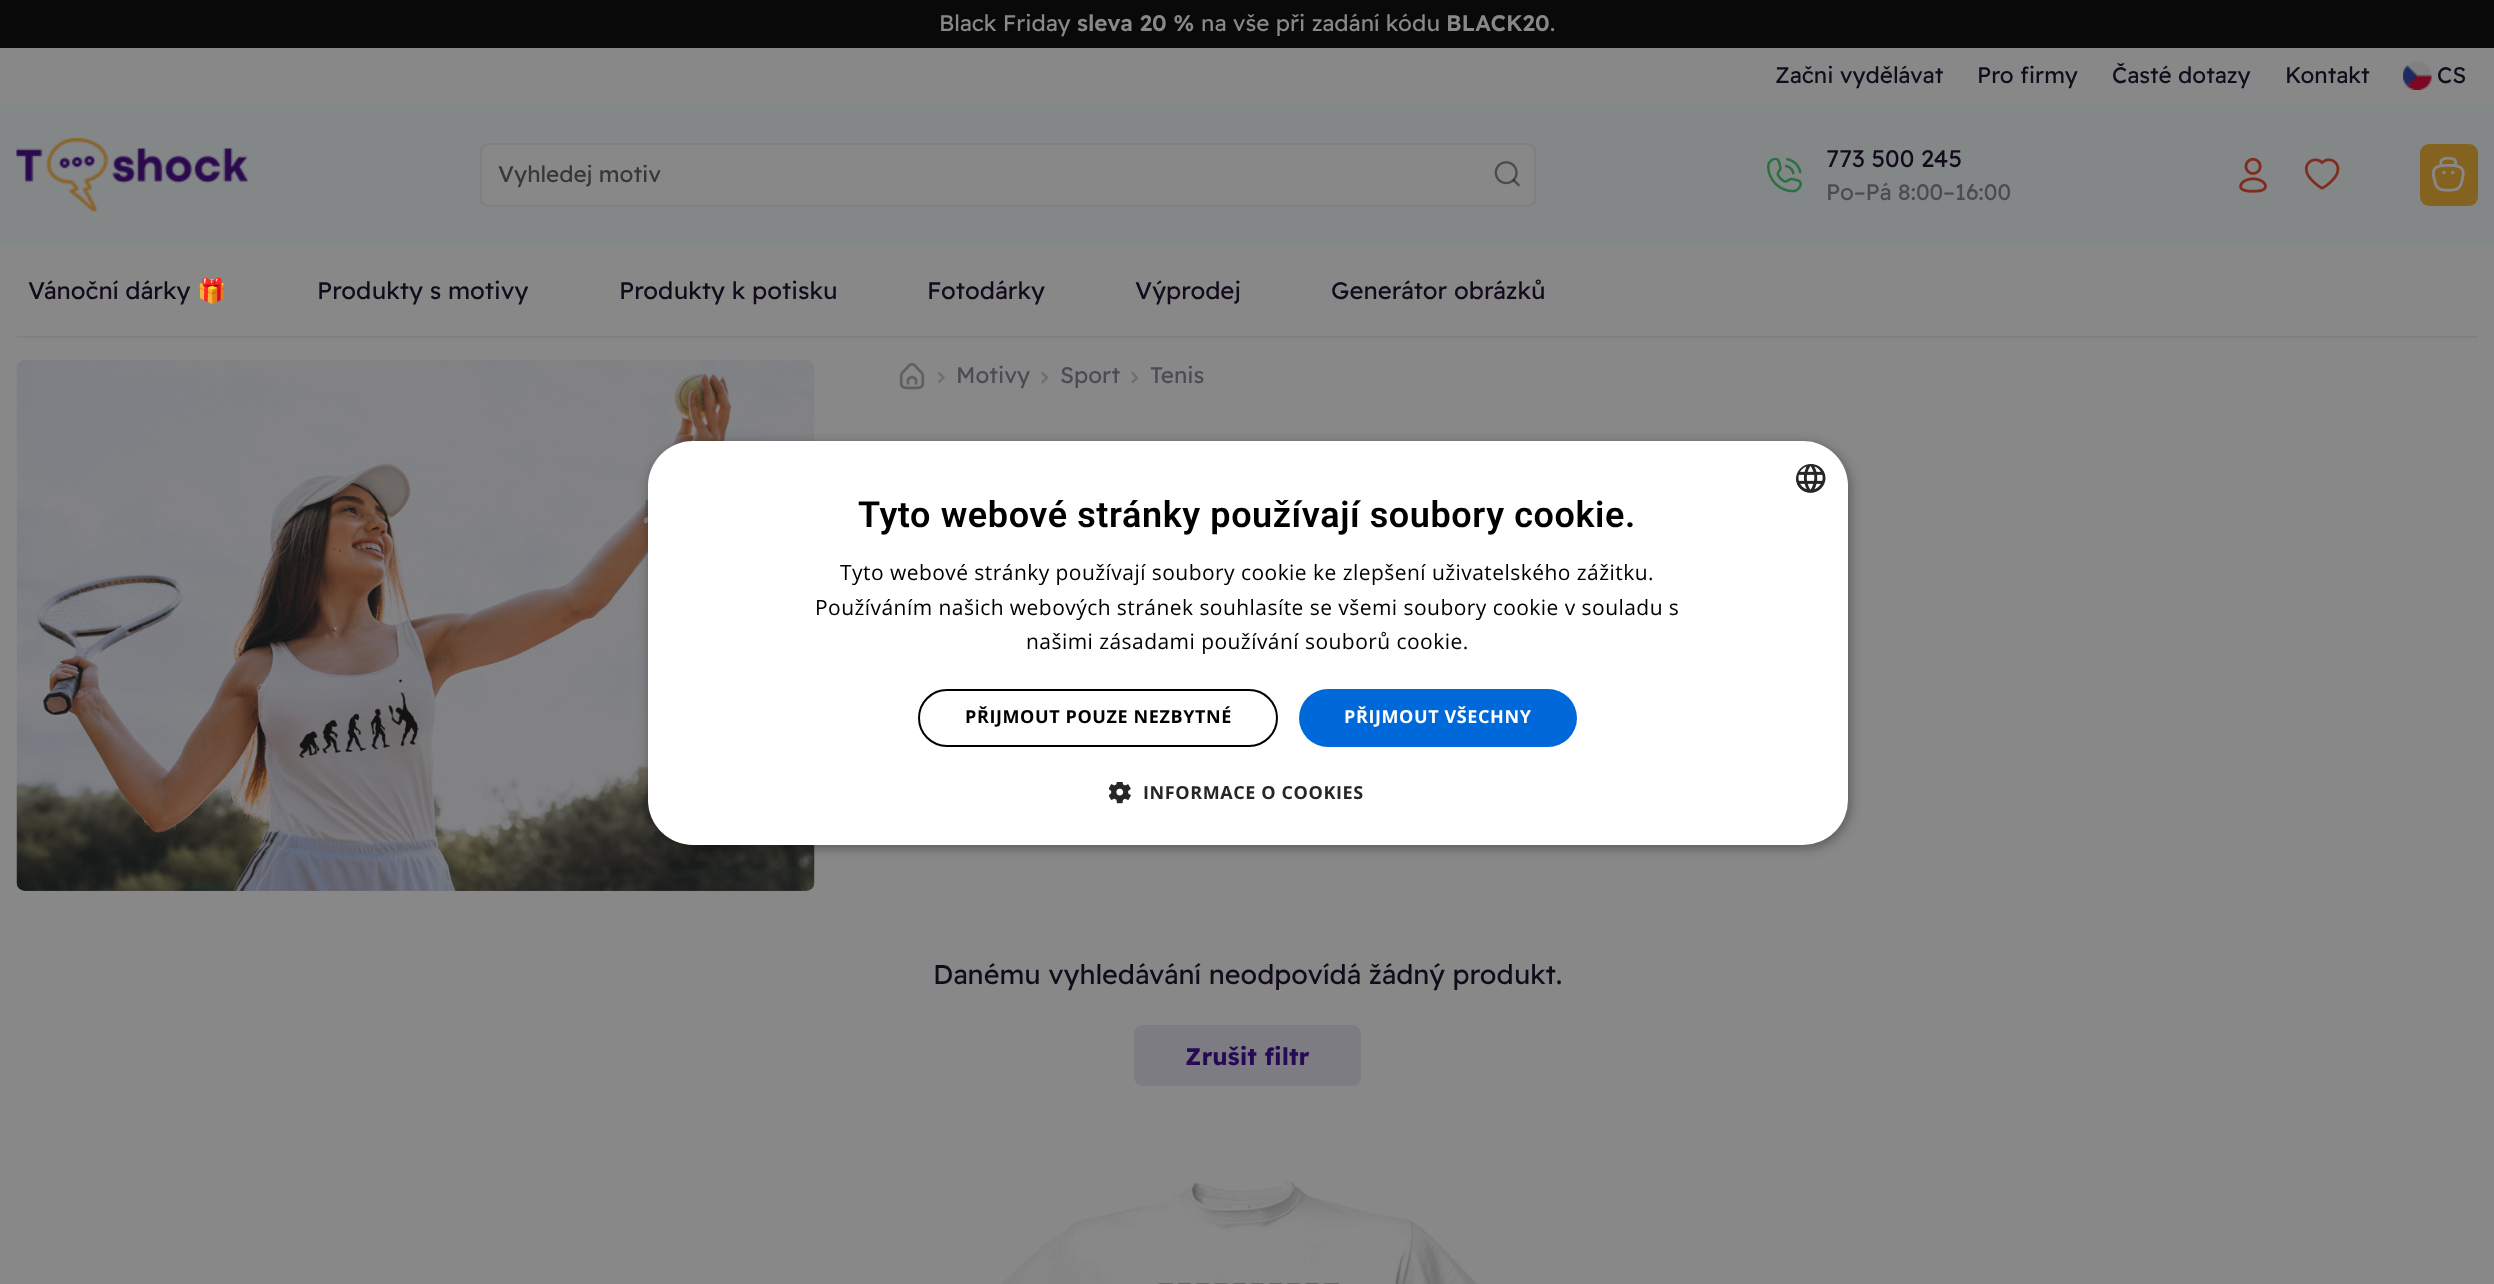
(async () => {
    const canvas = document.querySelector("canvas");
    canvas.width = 2494;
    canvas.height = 1284;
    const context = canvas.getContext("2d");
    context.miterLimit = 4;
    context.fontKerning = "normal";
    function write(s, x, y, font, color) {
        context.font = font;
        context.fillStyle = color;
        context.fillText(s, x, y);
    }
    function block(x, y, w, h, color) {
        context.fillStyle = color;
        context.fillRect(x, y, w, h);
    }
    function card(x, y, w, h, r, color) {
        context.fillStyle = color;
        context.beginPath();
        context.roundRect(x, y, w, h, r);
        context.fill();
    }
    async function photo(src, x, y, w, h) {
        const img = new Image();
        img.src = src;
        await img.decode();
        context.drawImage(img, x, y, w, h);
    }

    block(0, 0, 2494, 1284, "rgb(136, 136, 136)");
    block(0, 0, 2494, 48, "rgb(9, 9, 9)");
    write("Black Friday", 939, 31, "22.5px Readex Pro", "rgb(136, 136, 136)");
    write("sleva 20 %", 1077, 31, "600 22.5px Readex Pro", "rgb(136, 136, 136)");
    write("na vše při zadání kódu", 1201, 31, "22.5px Readex Pro", "rgb(136, 136, 136)");
    write("BLACK20", 1446, 31, "600 22.5px Readex Pro", "rgb(136, 136, 136)");
    write(".", 1550, 31, "22.5px Readex Pro", "rgb(136, 136, 136)");
    write("Začni vydělávat", 1775, 83, "22.5px Readex Pro", "rgb(18, 11, 28)");
    write("Pro firmy", 1977, 83, "22.5px Readex Pro", "rgb(18, 11, 28)");
    write("Časté dotazy", 2112, 83, "22.5px Readex Pro", "rgb(18, 11, 28)");
    write("Kontakt", 2285, 83, "22.5px Readex Pro", "rgb(18, 11, 28)");
    await photo("media/1.png", 2403, 61, 29, 29);
    write("CS", 2437, 83, "22.5px Readex Pro", "rgb(18, 11, 28)");
    block(0, 105, 2494, 141, "rgb(131, 135, 136)");
    await photo("media/2.png", 16, 138, 232, 74);
    context.fillStyle = "rgb(136, 136, 136)";
    context.beginPath();
    context.roundRect(481, 144, 1054, 62, 8);
    context.fill();
    context.strokeStyle = "rgb(129, 126, 132)";
    context.lineWidth = 2;
    context.stroke();
    write("Vyhledej motiv", 498, 182, "22.5px Readex Pro", "rgb(53, 55, 56)");
    await photo("media/3.png", 1494, 161, 26, 26);
    await photo("media/4.png", 1767, 158, 35, 35);
    write("773 500 245", 1826, 167, "24px Readex Pro", "rgb(18, 11, 28)");
    write("Po–Pá 8:00–16:00", 1826, 200, "22.5px Readex Pro", "rgb(77, 74, 82)");
    await photo("media/5.png", 2239, 158, 28, 35);
    await photo("media/6.png", 2304, 158, 36, 32);
    card(2420, 144, 58, 62, 9, "rgb(132, 99, 33)");
    await photo("media/7.png", 2432, 156, 33, 36);
    block(17, 336, 2461, 2, "rgb(129, 126, 132)");
    write("Vánoční dárky", 28, 299, "24px Readex Pro", "rgb(18, 11, 28)");
    write("🎁", 197, 299, "24px Noto Color Emoji", "rgb(18, 11, 28)");
    write("Produkty s motivy", 317, 299, "24px Readex Pro", "rgb(18, 11, 28)");
    write("Produkty k potisku", 619, 299, "24px Readex Pro", "rgb(18, 11, 28)");
    write("Fotodárky", 927, 299, "24px Readex Pro", "rgb(18, 11, 28)");
    write("Výprodej", 1135, 299, "24px Readex Pro", "rgb(18, 11, 28)");
    write("Generátor obrázků", 1331, 299, "24px Readex Pro", "rgb(18, 11, 28)");
    await photo("media/8.png", 16, 360, 799, 531);
    await photo("media/9.png", 899, 363, 26, 27);
    await photo("media/10.png", 938, 372, 7, 12);
    write("Motivy", 956, 383, "22.5px Readex Pro", "rgb(77, 74, 82)");
    await photo("media/11.png", 1041, 372, 7, 12);
    write("Sport", 1060, 383, "22.5px Readex Pro", "rgb(77, 74, 82)");
    await photo("media/11.png", 1131, 372, 7, 12);
    write("Tenis", 1150, 383, "22.5px Readex Pro", "rgb(77, 74, 82)");
    write("Danému vyhledávání neodpovídá žádný produkt.", 933, 984, "27px Readex Pro", "rgb(18, 11, 28)");
    card(1134, 1025, 227, 61, 9, "rgb(126, 124, 131)");
    write("Zrušit filtr", 1185, 1065, "bold 24px Readex Pro", "rgb(38, 10, 84)");
    await photo("media/12.png", 1001, 1181, 476, 103);
    context.fillStyle = "rgba(0, 0, 0, 0.35)";
    context.filter = "blur(6px)";
    context.beginPath();
    context.roundRect(650, 444, 1200, 404, 45);
    context.fill();
    context.filter = "none";
    card(648, 441, 1200, 404, 45, "rgb(255, 255, 255)");
    await photo("media/13.png", 1796, 464, 30, 29);
    context.letterSpacing = "0.6px";
    write("Tyto webové stránky používají soubory cookie.", 858, 527, "600 36px Roboto", "rgb(0, 0, 0)");
    context.letterSpacing = "0.45px";
    write("Tyto webové stránky používají soubory cookie ke zlepšení uživatelského zážitku.", 840, 580, "21px Open Sans", "rgb(0, 0, 0)");
    write("Používáním našich webových stránek souhlasíte se všemi soubory cookie v souladu s", 815, 615, "21px Open Sans", "rgb(0, 0, 0)");
    write("našimi zásadami používání souborů cookie.", 1026, 649, "21px Open Sans", "rgb(0, 0, 0)");
    context.beginPath();
    context.roundRect(919, 690, 358, 56, 28);
    context.strokeStyle = "rgb(0, 0, 0)";
    context.stroke();
    context.letterSpacing = "0.6px";
    write("PŘIJMOUT POUZE NEZBYTNÉ", 965, 723, "bold 18px Open Sans", "rgb(0, 0, 0)");
    card(1299, 689, 278, 58, 29, "rgb(0, 105, 217)");
    write("PŘIJMOUT VŠECHNY", 1344, 723, "bold 18px Open Sans", "rgb(255, 255, 255)");
    await photo("media/14.png", 1109, 782, 22, 22);
    write("INFORMACE O COOKIES", 1143, 799, "bold 18px Open Sans", "rgb(38, 38, 38)");
})();
